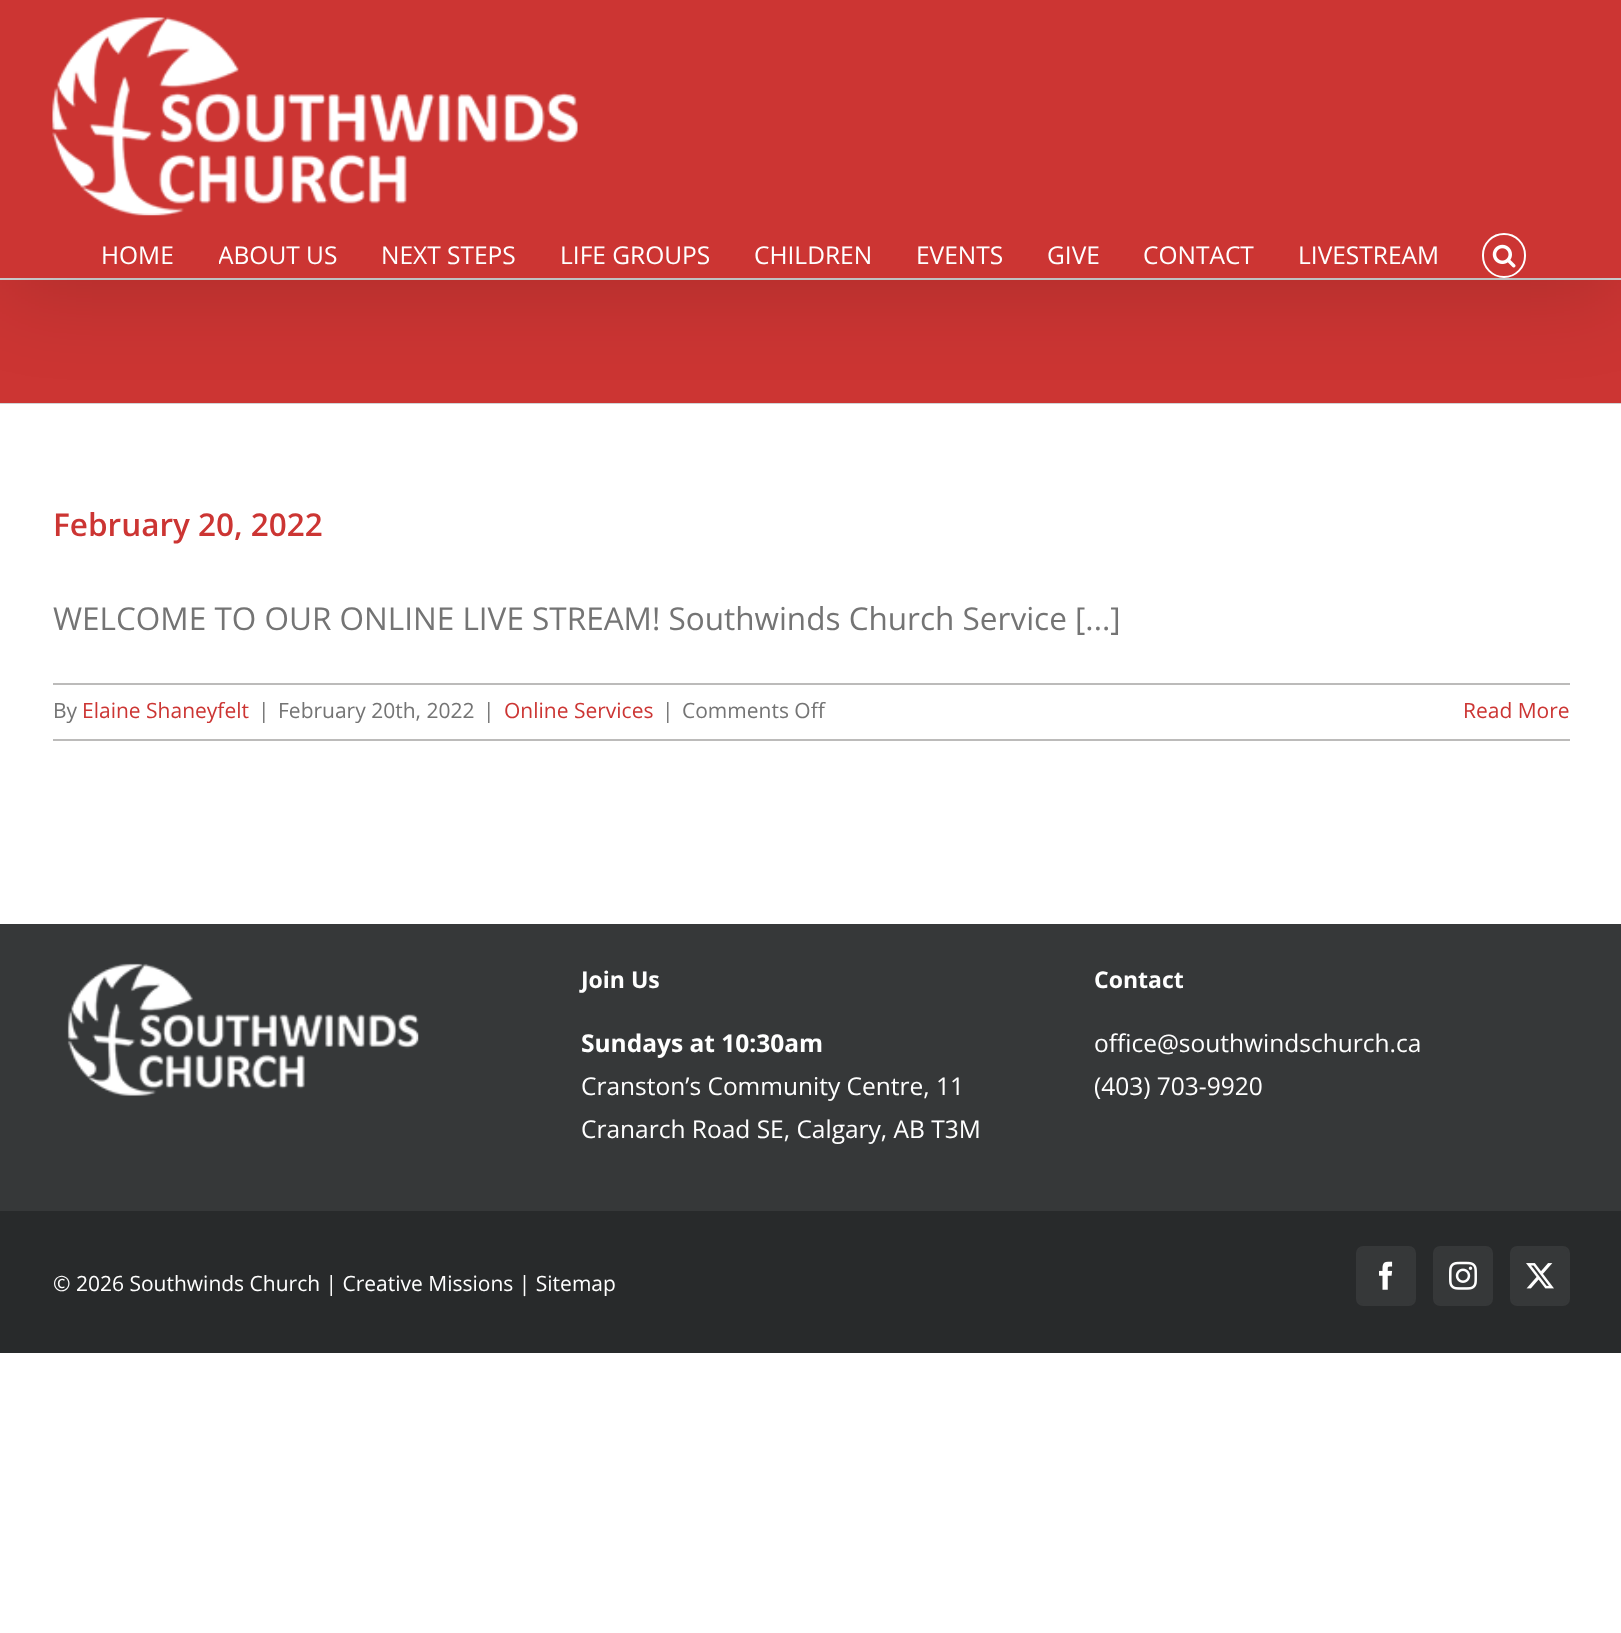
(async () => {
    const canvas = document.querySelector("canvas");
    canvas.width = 1621;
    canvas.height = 1633;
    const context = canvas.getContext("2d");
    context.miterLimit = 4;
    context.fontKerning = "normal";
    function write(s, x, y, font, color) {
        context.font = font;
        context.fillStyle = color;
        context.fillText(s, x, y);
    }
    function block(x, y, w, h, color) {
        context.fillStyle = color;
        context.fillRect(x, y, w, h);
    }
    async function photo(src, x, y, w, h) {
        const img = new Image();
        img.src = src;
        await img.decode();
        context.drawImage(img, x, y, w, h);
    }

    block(0, 0, 1621, 1633, "rgb(255, 255, 255)");
    block(0, 280, 1621, 123, "rgb(204, 53, 51)");
    block(0, 278, 1621, 2, "rgb(210, 211, 212)");
    block(0, 403, 1621, 1, "rgb(210, 211, 212)");
    context.fillStyle = "rgba(0, 0, 0, 0.14)";
    context.filter = "blur(44px)";
    context.beginPath();
    context.rect(4, 21, 1615, 271);
    context.fill();
    context.filter = "none";
    block(0, 0, 1621, 278, "rgb(204, 53, 51)");
    await photo("media/1.png", 52, 17, 526, 199);
    write("HOME", 101, 264, "24.5px Open Sans", "rgb(255, 255, 255)");
    context.save();
    context.beginPath();
    context.rect(219, 233, 163, 45);
    context.clip();
    write("ABOUT US", 218, 264, "24.5px Open Sans", "rgb(255, 255, 255)");
    context.restore();
    write("NEXT STEPS", 381, 264, "24.5px Open Sans", "rgb(255, 255, 255)");
    write("LIFE GROUPS", 560, 264, "24.5px Open Sans", "rgb(255, 255, 255)");
    write("CHILDREN", 754, 264, "24.5px Open Sans", "rgb(255, 255, 255)");
    write("EVENTS", 916, 264, "24.5px Open Sans", "rgb(255, 255, 255)");
    write("GIVE", 1047, 264, "24.5px Open Sans", "rgb(255, 255, 255)");
    write("CONTACT", 1143, 264, "24.5px Open Sans", "rgb(255, 255, 255)");
    write("LIVESTREAM", 1298, 264, "24.5px Open Sans", "rgb(255, 255, 255)");
    context.beginPath();
    context.roundRect(1483, 234, 42, 43, 21);
    context.strokeStyle = "rgb(255, 255, 255)";
    context.lineWidth = 2;
    context.stroke();
    await photo("media/2.png", 1492, 244, 24, 24);
    write("February 20, 2022", 53, 536, "600 31.5px Open Sans", "rgb(204, 53, 51)");
    write("WELCOME TO OUR ONLINE LIVE STREAM! Southwinds Church Service [...]", 53, 630, "31.5px Open Sans", "rgb(116, 116, 116)");
    block(53, 683, 1517, 2, "rgb(188, 187, 186)");
    block(53, 739, 1517, 2, "rgb(188, 187, 186)");
    write("By", 53, 718, "21px Open Sans", "rgb(116, 116, 116)");
    write("Elaine Shaneyfelt", 82, 718, "21px Open Sans", "rgb(204, 53, 51)");
    write("|", 258, 718, "21px Open Sans", "rgb(116, 116, 116)");
    write("February 20th, 2022", 278, 718, "21px Open Sans", "rgb(116, 116, 116)");
    write("|", 483, 718, "21px Open Sans", "rgb(116, 116, 116)");
    write("Online Services", 504, 718, "21px Open Sans", "rgb(204, 53, 51)");
    write("|", 662, 718, "21px Open Sans", "rgb(116, 116, 116)");
    write("Comments Off", 682, 718, "21px Open Sans", "rgb(116, 116, 116)");
    write("Read More", 1463, 718, "21px Open Sans", "rgb(204, 53, 51)");
    block(0, 924, 1621, 287, "rgb(54, 56, 57)");
    await photo("media/3.png", 67, 963, 352, 133);
    write("Join Us", 581, 988, "bold 23px Open Sans", "rgb(255, 255, 255)");
    write("Sundays at 10:30am", 581, 1052, "bold 24.5px Open Sans", "rgb(255, 255, 255)");
    write("Cranston’s Community Centre, 11", 581, 1095, "24.5px Open Sans", "rgb(255, 255, 255)");
    write("Cranarch Road SE, Calgary, AB T3M", 581, 1138, "24.5px Open Sans", "rgb(255, 255, 255)");
    write("Contact", 1094, 988, "bold 23px Open Sans", "rgb(255, 255, 255)");
    write("office@southwindschurch.ca", 1094, 1052, "24.5px Open Sans", "rgb(255, 255, 255)");
    write("(403) 703-9920", 1094, 1095, "24.5px Open Sans", "rgb(255, 255, 255)");
    block(0, 1211, 1621, 142, "rgb(40, 42, 43)");
    write("© 2026 Southwinds Church | Creative Missions | Sitemap", 53, 1291, "21px Open Sans", "rgb(255, 255, 255)");
    context.fillStyle = "rgb(54, 56, 57)";
    context.beginPath();
    context.roundRect(1357, 1247, 58, 58, 6);
    context.fill();
    context.strokeStyle = "rgb(54, 56, 57)";
    context.stroke();
    await photo("media/4.png", 1379, 1261, 14, 29);
    context.beginPath();
    context.roundRect(1434, 1247, 58, 58, 6);
    context.fill();
    context.stroke();
    await photo("media/5.png", 1449, 1261, 28, 29);
    context.beginPath();
    context.roundRect(1511, 1247, 58, 58, 6);
    context.fill();
    context.stroke();
    await photo("media/6.png", 1526, 1263, 28, 26);
})();
